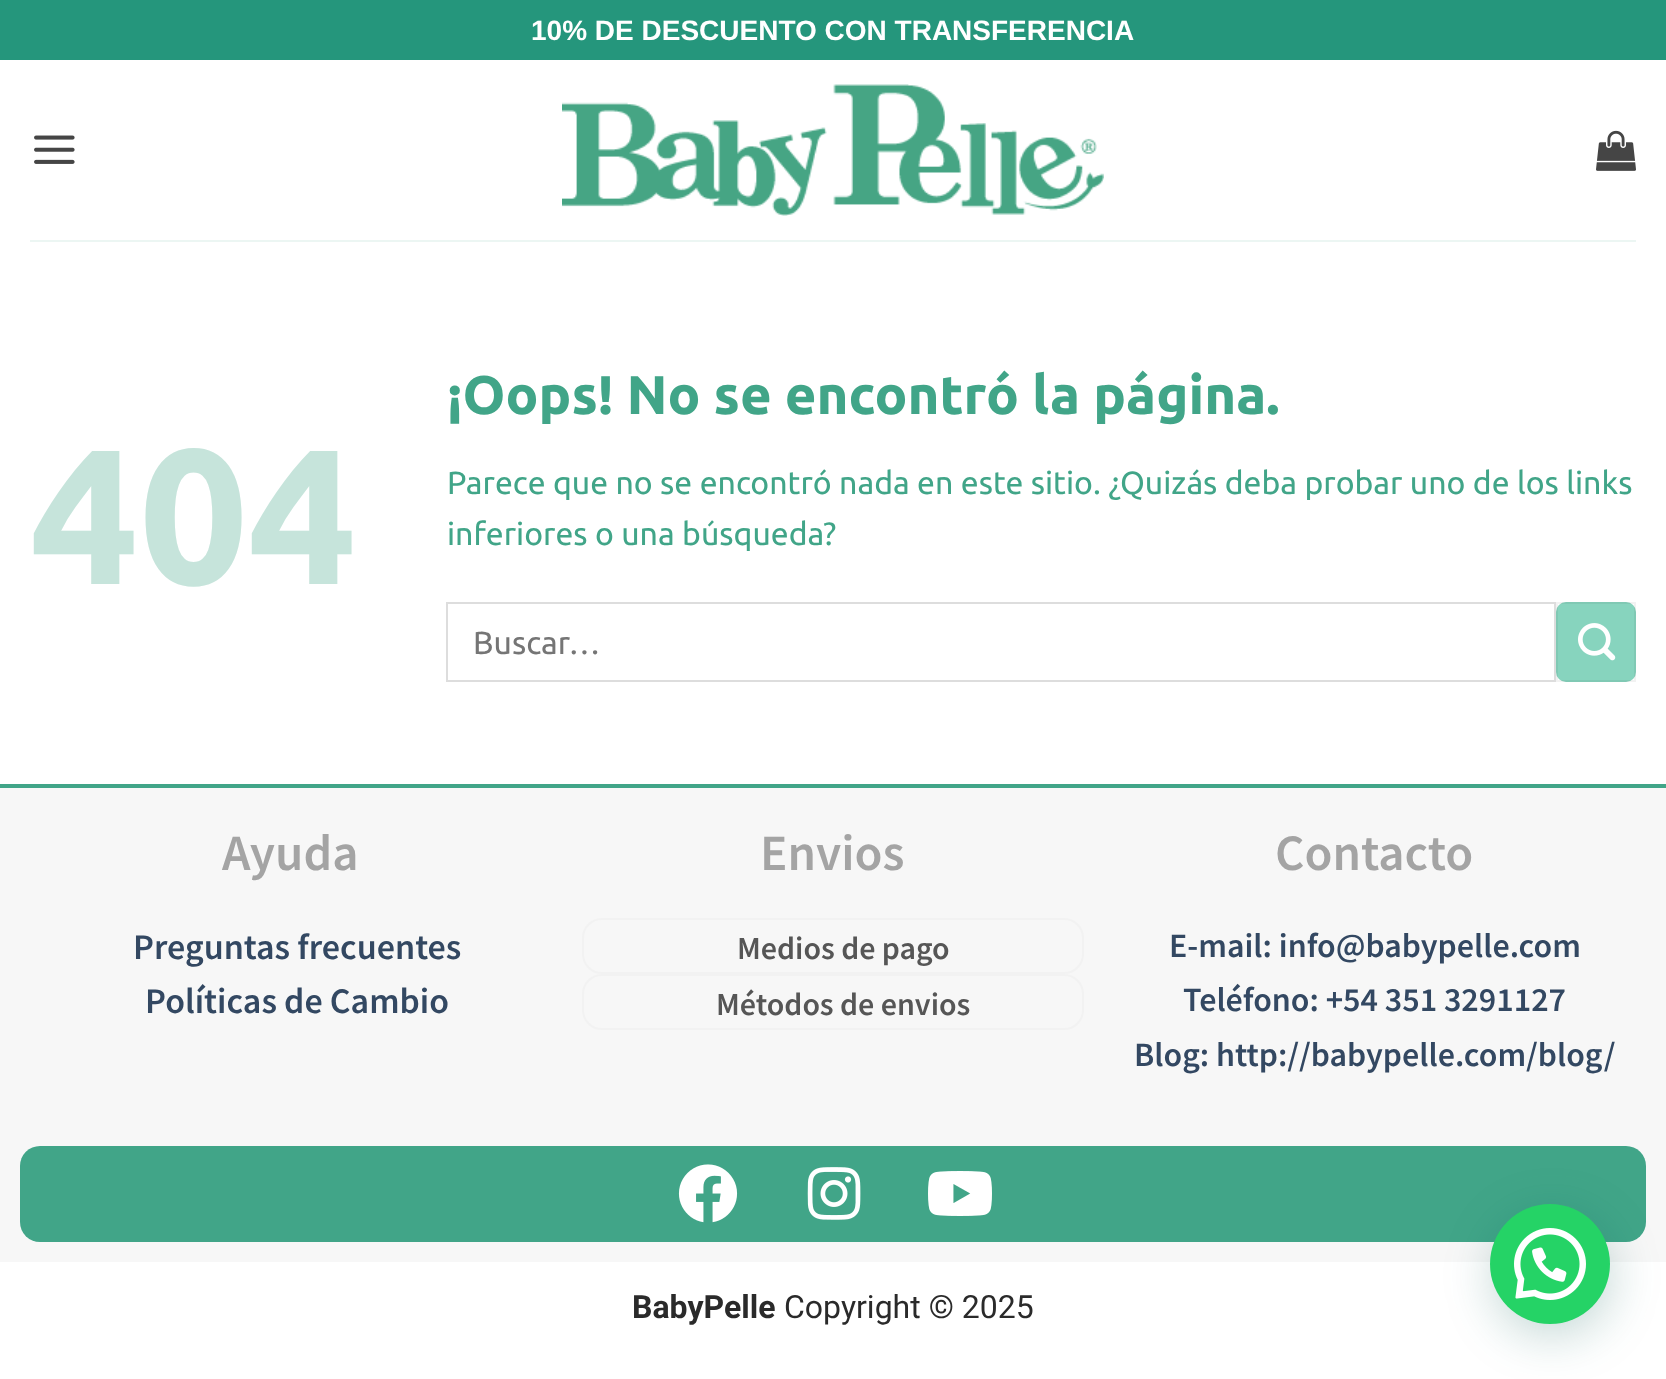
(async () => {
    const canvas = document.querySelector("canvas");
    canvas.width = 1666;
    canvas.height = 1379;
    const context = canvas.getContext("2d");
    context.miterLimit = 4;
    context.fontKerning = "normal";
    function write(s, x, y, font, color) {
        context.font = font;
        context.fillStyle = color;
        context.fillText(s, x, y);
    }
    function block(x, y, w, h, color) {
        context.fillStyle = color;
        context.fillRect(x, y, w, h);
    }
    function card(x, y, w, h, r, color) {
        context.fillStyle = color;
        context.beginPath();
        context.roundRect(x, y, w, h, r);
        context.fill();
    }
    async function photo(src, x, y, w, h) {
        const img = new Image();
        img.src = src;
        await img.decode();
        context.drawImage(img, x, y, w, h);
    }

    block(0, 0, 1666, 1379, "rgb(255, 255, 255)");
    block(0, 0, 1666, 60, "rgb(37, 150, 124)");
    write("10% DE DESCUENTO CON TRANSFERENCIA", 531, 40, "bold 28px Liberation Sans", "rgb(255, 255, 255)");
    await photo("media/1.png", 34, 135, 41, 29);
    await photo("media/2.png", 562, 84, 542, 132);
    await photo("media/3.png", 1596, 130, 40, 41);
    block(30, 240, 1606, 2, "rgb(236, 246, 243)");
    write("404", 30, 584, "bold 192px Ubuntu", "rgb(198, 228, 219)");
    write("¡Oops! No se encontró la página.", 447, 414, "bold 54.4px Ubuntu", "rgb(65, 165, 136)");
    write("Parece que no se encontró nada en este sitio. ¿Quizás deba probar uno de los links", 447, 494, "32px Ubuntu", "rgb(65, 165, 136)");
    write("inferiores o una búsqueda?", 447, 545, "32px Ubuntu", "rgb(65, 165, 136)");
    context.strokeStyle = "rgb(221, 221, 221)";
    context.lineWidth = 2;
    context.strokeRect(447, 603, 1108, 78);
    write("Buscar…", 473, 654, "32px Ubuntu", "rgb(117, 117, 117)");
    card(1556, 602, 80, 80, 10, "rgb(135, 212, 190)");
    context.strokeStyle = "rgba(0, 0, 0, 0.05)";
    context.strokeRect(1557, 603, 78, 78);
    await photo("media/4.png", 1578, 623, 38, 38);
    block(0, 788, 1666, 474, "rgb(247, 247, 247)");
    block(0, 784, 1666, 4, "rgb(65, 165, 136)");
    write("Ayuda", 222, 870, "600 51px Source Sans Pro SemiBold", "rgb(164, 164, 164)");
    write("Preguntas frecuentes", 133, 959, "600 36px Source Sans Pro SemiBold", "rgb(51, 72, 98)");
    write("Políticas de Cambio", 145, 1013, "600 36px Source Sans Pro SemiBold", "rgb(51, 72, 98)");
    write("Envios", 760, 870, "600 51px Source Sans Pro SemiBold", "rgb(164, 164, 164)");
    context.beginPath();
    context.roundRect(583, 919, 500, 54, 19);
    context.strokeStyle = "rgb(242, 242, 242)";
    context.stroke();
    write("Medios de pago", 737, 959, "600 32px Source Sans Pro SemiBold", "rgb(86, 86, 86)");
    context.beginPath();
    context.roundRect(583, 975, 500, 54, 19);
    context.stroke();
    write("Métodos de envios", 716, 1015, "600 32px Source Sans Pro SemiBold", "rgb(86, 86, 86)");
    write("Contacto", 1275, 870, "600 51px Source Sans Pro SemiBold", "rgb(164, 164, 164)");
    write("E-mail: info@babypelle.com", 1169, 957, "600 34px Source Sans Pro SemiBold", "rgb(51, 72, 98)");
    write("Teléfono: +54 351 3291127", 1183, 1011, "600 34px Source Sans Pro SemiBold", "rgb(51, 72, 98)");
    write("Blog: http://babypelle.com/blog/", 1134, 1066, "600 34px Source Sans Pro SemiBold", "rgb(51, 72, 98)");
    card(20, 1146, 1626, 96, 20, "rgb(65, 165, 136)");
    await photo("media/5.png", 678, 1164, 60, 59);
    await photo("media/6.png", 807, 1167, 54, 53);
    await photo("media/7.png", 928, 1171, 64, 45);
    write("BabyPelle", 632, 1318, "bold 32px Roboto", "rgb(42, 42, 42)");
    write("Copyright © 2025", 784, 1318, "32px Roboto", "rgb(42, 42, 42)");
    context.fillStyle = "rgba(7, 94, 84, 0.24)";
    context.filter = "blur(24px)";
    context.beginPath();
    context.roundRect(1492, 1216, 120, 120, 60);
    context.fill();
    context.filter = "none";
    context.fillStyle = "rgb(37, 211, 102)";
    context.beginPath();
    context.arc(1550, 1264, 60, 0, Math.PI * 2);
    context.fill();
    await photo("media/8.png", 1514, 1228, 72, 72);
})();
